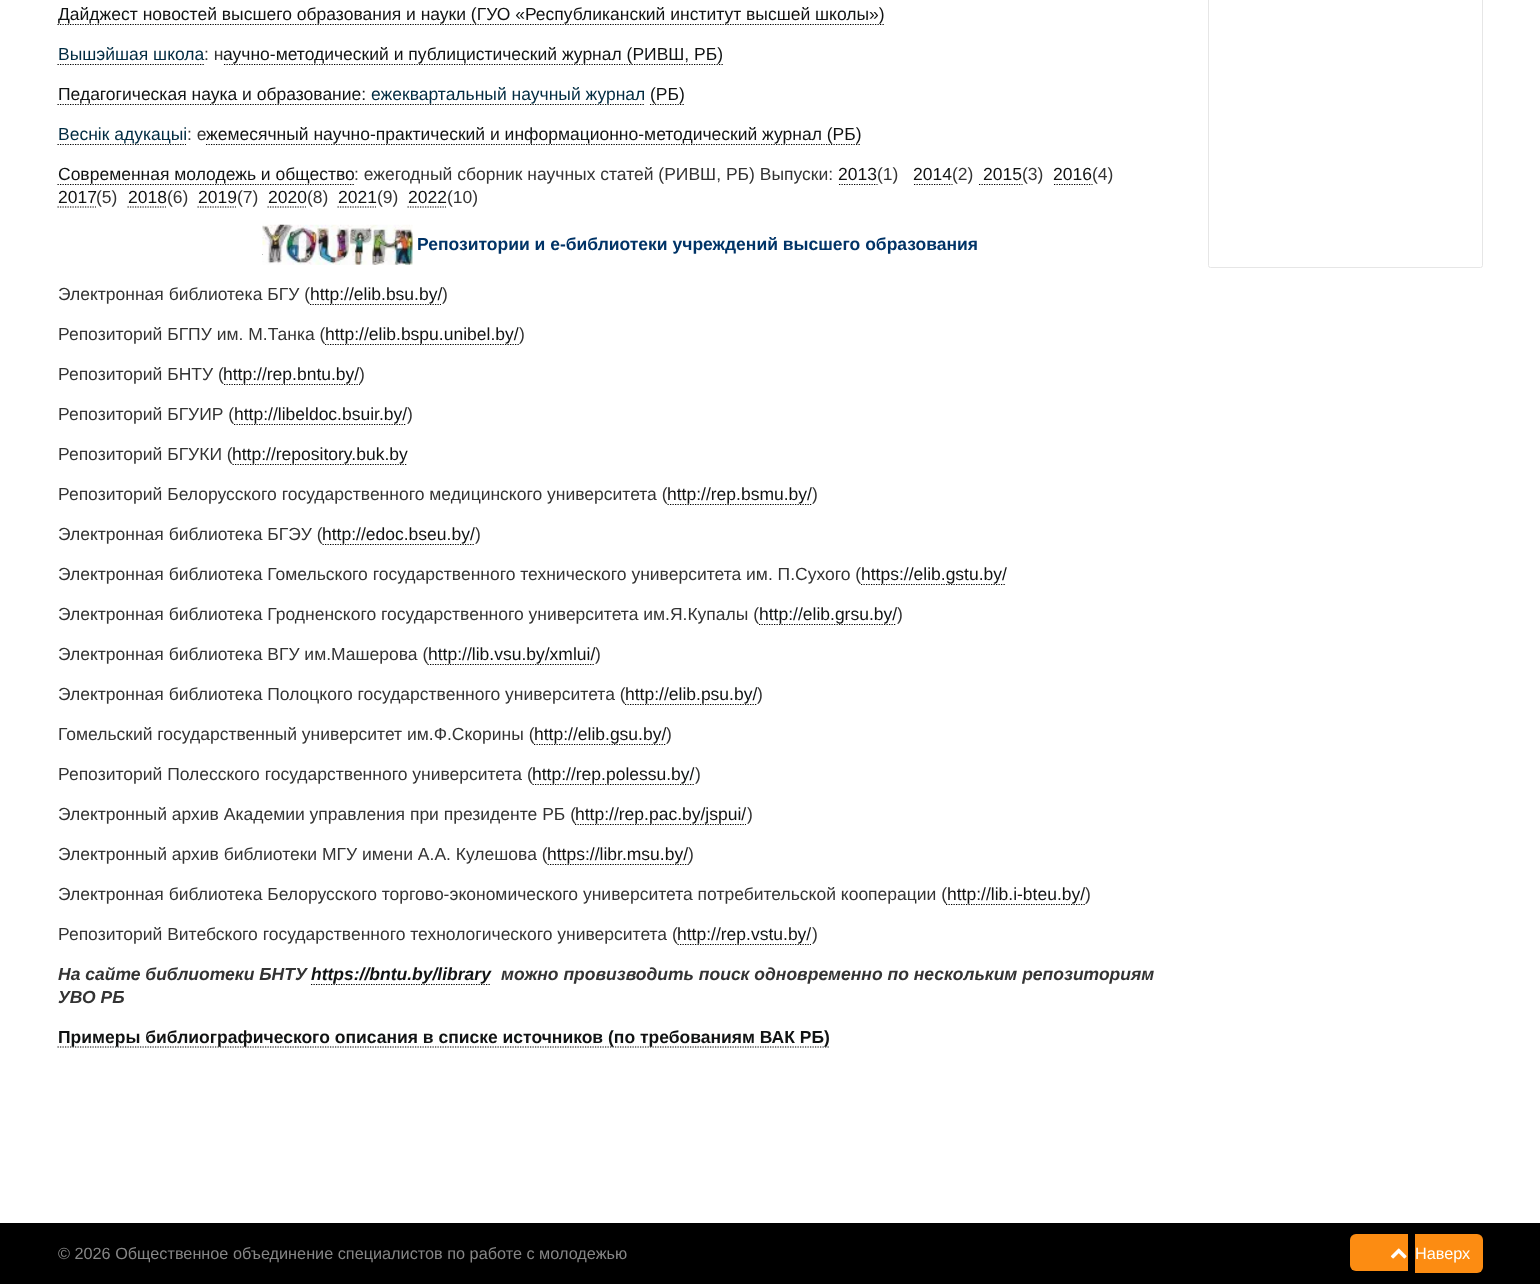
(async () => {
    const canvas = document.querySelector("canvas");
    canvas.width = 1540;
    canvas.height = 1284;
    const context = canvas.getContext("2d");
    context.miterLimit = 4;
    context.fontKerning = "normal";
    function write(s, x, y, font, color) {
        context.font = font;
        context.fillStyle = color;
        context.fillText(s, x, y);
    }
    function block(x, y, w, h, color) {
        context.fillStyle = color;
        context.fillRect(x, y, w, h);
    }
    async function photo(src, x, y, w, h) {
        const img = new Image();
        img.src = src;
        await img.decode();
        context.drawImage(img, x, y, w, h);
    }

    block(0, 0, 1540, 1284, "rgb(255, 255, 255)");
    context.beginPath();
    context.moveTo(57.5, 24.5);
    context.lineTo(884, 24.5);
    context.strokeStyle = "rgb(0, 0, 0)";
    context.lineWidth = 1.2;
    context.setLineDash([1.25, 1.25]);
    context.stroke();
    write("Дайджест новостей высшего образования и науки (ГУО «Республиканский институт высшей школы»)", 58, 20, "17.5px Liberation Sans", "rgb(16, 18, 18)");
    write("Вышэйшая школа", 58, 60, "17.5px Liberation Sans", "rgb(0, 43, 65)");
    context.beginPath();
    context.moveTo(57.5, 64.5);
    context.lineTo(204, 64.5);
    context.stroke();
    write(": н", 204, 60, "17.5px Liberation Sans", "rgb(51, 51, 51)");
    context.beginPath();
    context.moveTo(224, 64.5);
    context.lineTo(724, 64.5);
    context.stroke();
    write("аучно-методический и публицистический журнал (РИВШ, РБ)", 223, 60, "17.5px Liberation Sans", "rgb(16, 18, 18)");
    context.beginPath();
    context.moveTo(57.5, 104.5);
    context.lineTo(370, 104.5);
    context.stroke();
    write("Педагогическая наука и образование:", 58, 100, "17.5px Liberation Sans", "rgb(16, 18, 18)");
    context.beginPath();
    context.moveTo(370, 104.5);
    context.lineTo(645, 104.5);
    context.stroke();
    write("ежеквартальный научный журнал", 371, 100, "17.5px Liberation Sans", "rgb(0, 43, 65)");
    context.beginPath();
    context.moveTo(650, 104.5);
    context.lineTo(685, 104.5);
    context.stroke();
    write("(РБ)", 650, 100, "17.5px Liberation Sans", "rgb(16, 18, 18)");
    context.beginPath();
    context.moveTo(57.5, 144.5);
    context.lineTo(186, 144.5);
    context.stroke();
    write("Веснік адукацыі", 58, 140, "17.5px Liberation Sans", "rgb(0, 43, 65)");
    write(": е", 187, 140, "17.5px Liberation Sans", "rgb(51, 51, 51)");
    context.beginPath();
    context.moveTo(206, 144.5);
    context.lineTo(861, 144.5);
    context.stroke();
    write("жемесячный научно-практический и информационно-методический журнал (РБ)", 206, 140, "17.5px Liberation Sans", "rgb(16, 18, 18)");
    context.beginPath();
    context.moveTo(57.5, 184.5);
    context.lineTo(354, 184.5);
    context.stroke();
    write("Современная молодежь и общество", 58, 180, "17.5px Liberation Sans", "rgb(16, 18, 18)");
    write(": ежегодный сборник научных статей (РИВШ, РБ) Выпуски:", 354, 180, "17.5px Liberation Sans", "rgb(51, 51, 51)");
    write("2013", 838, 180, "17.5px Liberation Sans", "rgb(16, 18, 18)");
    context.beginPath();
    context.moveTo(839, 184.5);
    context.lineTo(877.5, 184.5);
    context.stroke();
    write("(1)", 877, 180, "17.5px Liberation Sans", "rgb(51, 51, 51)");
    write("2014", 913, 180, "17.5px Liberation Sans", "rgb(16, 18, 18)");
    context.beginPath();
    context.moveTo(914, 184.5);
    context.lineTo(952.5, 184.5);
    context.stroke();
    write("(2)", 952, 180, "17.5px Liberation Sans", "rgb(51, 51, 51)");
    write("2015", 983, 180, "17.5px Liberation Sans", "rgb(16, 18, 18)");
    context.beginPath();
    context.moveTo(979, 184.5);
    context.lineTo(1022.5, 184.5);
    context.stroke();
    write("(3)", 1022, 180, "17.5px Liberation Sans", "rgb(51, 51, 51)");
    write("2016", 1053, 180, "17.5px Liberation Sans", "rgb(16, 18, 18)");
    context.beginPath();
    context.moveTo(1054, 184.5);
    context.lineTo(1092.5, 184.5);
    context.stroke();
    write("(4)", 1092, 180, "17.5px Liberation Sans", "rgb(51, 51, 51)");
    write("2017", 58, 203, "17.5px Liberation Sans", "rgb(16, 18, 18)");
    context.beginPath();
    context.moveTo(57.5, 207);
    context.lineTo(96, 207);
    context.stroke();
    write("(5)", 96, 203, "17.5px Liberation Sans", "rgb(51, 51, 51)");
    write("2018", 128, 203, "17.5px Liberation Sans", "rgb(16, 18, 18)");
    context.beginPath();
    context.moveTo(127.5, 207);
    context.lineTo(166, 207);
    context.stroke();
    write("(6)", 167, 203, "17.5px Liberation Sans", "rgb(51, 51, 51)");
    write("2019", 198, 203, "17.5px Liberation Sans", "rgb(16, 18, 18)");
    context.beginPath();
    context.moveTo(197.5, 207);
    context.lineTo(236, 207);
    context.stroke();
    write("(7)", 237, 203, "17.5px Liberation Sans", "rgb(51, 51, 51)");
    write("2020", 268, 203, "17.5px Liberation Sans", "rgb(16, 18, 18)");
    context.beginPath();
    context.moveTo(267.5, 207);
    context.lineTo(306, 207);
    context.stroke();
    write("(8)", 307, 203, "17.5px Liberation Sans", "rgb(51, 51, 51)");
    write("2021", 338, 203, "17.5px Liberation Sans", "rgb(16, 18, 18)");
    context.beginPath();
    context.moveTo(337.5, 207);
    context.lineTo(376, 207);
    context.stroke();
    write("(9)", 377, 203, "17.5px Liberation Sans", "rgb(51, 51, 51)");
    write("2022", 408, 203, "17.5px Liberation Sans", "rgb(16, 18, 18)");
    context.beginPath();
    context.moveTo(407.5, 207);
    context.lineTo(446, 207);
    context.stroke();
    write("(10)", 447, 203, "17.5px Liberation Sans", "rgb(51, 51, 51)");
    context.beginPath();
    context.moveTo(262.5, 254.5);
    context.lineTo(412.5, 254.5);
    context.stroke();
    await photo("media/1.png", 262, 224, 151, 41);
    write("Репозитории и е-библиотеки учреждений высшего образования", 417, 250, "bold 17.5px Liberation Sans", "rgb(0, 51, 102)");
    write("Электронная библиотека БГУ (", 58, 300, "17.5px Liberation Sans", "rgb(51, 51, 51)");
    context.beginPath();
    context.moveTo(310, 304.5);
    context.lineTo(441, 304.5);
    context.stroke();
    write("http://elib.bsu.by/", 310, 300, "17.5px Liberation Sans", "rgb(16, 18, 18)");
    write(")", 442, 300, "17.5px Liberation Sans", "rgb(51, 51, 51)");
    write("Репозиторий БГПУ им. М.Танка (", 58, 340, "17.5px Liberation Sans", "rgb(51, 51, 51)");
    context.beginPath();
    context.moveTo(325, 344.5);
    context.lineTo(519, 344.5);
    context.stroke();
    write("http://elib.bspu.unibel.by/", 325, 340, "17.5px Liberation Sans", "rgb(16, 18, 18)");
    write(")", 519, 340, "17.5px Liberation Sans", "rgb(51, 51, 51)");
    write("Репозиторий БНТУ (", 58, 380, "17.5px Liberation Sans", "rgb(51, 51, 51)");
    context.beginPath();
    context.moveTo(224, 384.5);
    context.lineTo(360, 384.5);
    context.stroke();
    write("http://rep.bntu.by/", 223, 380, "17.5px Liberation Sans", "rgb(16, 18, 18)");
    write(")", 359, 380, "17.5px Liberation Sans", "rgb(51, 51, 51)");
    write("Репозиторий БГУИР (", 58, 420, "17.5px Liberation Sans", "rgb(51, 51, 51)");
    context.beginPath();
    context.moveTo(234, 424.5);
    context.lineTo(406, 424.5);
    context.stroke();
    write("http://libeldoc.bsuir.by/", 234, 420, "17.5px Liberation Sans", "rgb(16, 18, 18)");
    write(")", 407, 420, "17.5px Liberation Sans", "rgb(51, 51, 51)");
    write("Репозиторий БГУКИ (", 58, 460, "17.5px Liberation Sans", "rgb(51, 51, 51)");
    context.beginPath();
    context.moveTo(232.5, 464.5);
    context.lineTo(407.5, 464.5);
    context.stroke();
    write("http://repository.buk.by", 232, 460, "17.5px Liberation Sans", "rgb(16, 18, 18)");
    write("Репозиторий Белорусского государственного медицинского университета (", 58, 500, "17.5px Liberation Sans", "rgb(51, 51, 51)");
    context.beginPath();
    context.moveTo(667.5, 504.5);
    context.lineTo(812.5, 504.5);
    context.stroke();
    write("http://rep.bsmu.by/", 667, 500, "17.5px Liberation Sans", "rgb(16, 18, 18)");
    write(")", 812, 500, "17.5px Liberation Sans", "rgb(51, 51, 51)");
    write("Электронная библиотека БГЭУ (", 58, 540, "17.5px Liberation Sans", "rgb(51, 51, 51)");
    context.beginPath();
    context.moveTo(322.5, 544.5);
    context.lineTo(475, 544.5);
    context.stroke();
    write("http://edoc.bseu.by/", 322, 540, "17.5px Liberation Sans", "rgb(16, 18, 18)");
    write(")", 475, 540, "17.5px Liberation Sans", "rgb(51, 51, 51)");
    write("Электронная библиотека Гомельского государственного технического университета им. П.Сухого (", 58, 580, "17.5px Liberation Sans", "rgb(51, 51, 51)");
    context.beginPath();
    context.moveTo(861, 584.5);
    context.lineTo(1006, 584.5);
    context.stroke();
    write("https://elib.gstu.by/", 861, 580, "17.5px Liberation Sans", "rgb(16, 18, 18)");
    write("Электронная библиотека Гродненского государственного университета им.Я.Купалы (", 58, 620, "17.5px Liberation Sans", "rgb(51, 51, 51)");
    context.beginPath();
    context.moveTo(759, 624.5);
    context.lineTo(896, 624.5);
    context.stroke();
    write("http://elib.grsu.by/", 759, 620, "17.5px Liberation Sans", "rgb(16, 18, 18)");
    write(")", 897, 620, "17.5px Liberation Sans", "rgb(51, 51, 51)");
    write("Электронная библиотека ВГУ им.Машерова (", 58, 660, "17.5px Liberation Sans", "rgb(51, 51, 51)");
    context.beginPath();
    context.moveTo(427.5, 664.5);
    context.lineTo(595, 664.5);
    context.stroke();
    write("http://lib.vsu.by/xmlui/", 428, 660, "17.5px Liberation Sans", "rgb(16, 18, 18)");
    write(")", 595, 660, "17.5px Liberation Sans", "rgb(51, 51, 51)");
    write("Электронная библиотека Полоцкого государственного университета (", 58, 700, "17.5px Liberation Sans", "rgb(51, 51, 51)");
    context.beginPath();
    context.moveTo(625, 704.5);
    context.lineTo(757.5, 704.5);
    context.stroke();
    write("http://elib.psu.by/", 625, 700, "17.5px Liberation Sans", "rgb(16, 18, 18)");
    write(")", 757, 700, "17.5px Liberation Sans", "rgb(51, 51, 51)");
    write("Гомельский государственный университет им.Ф.Скорины (", 58, 740, "17.5px Liberation Sans", "rgb(51, 51, 51)");
    context.beginPath();
    context.moveTo(534, 744.5);
    context.lineTo(666, 744.5);
    context.stroke();
    write("http://elib.gsu.by/", 534, 740, "17.5px Liberation Sans", "rgb(16, 18, 18)");
    write(")", 666, 740, "17.5px Liberation Sans", "rgb(51, 51, 51)");
    write("Репозиторий Полесского государственного университета (", 58, 780, "17.5px Liberation Sans", "rgb(51, 51, 51)");
    context.beginPath();
    context.moveTo(532.5, 784.5);
    context.lineTo(695, 784.5);
    context.stroke();
    write("http://rep.polessu.by/", 532, 780, "17.5px Liberation Sans", "rgb(16, 18, 18)");
    write(")", 695, 780, "17.5px Liberation Sans", "rgb(51, 51, 51)");
    write("Электронный архив Академии управления при президенте РБ (", 58, 820, "17.5px Liberation Sans", "rgb(51, 51, 51)");
    context.beginPath();
    context.moveTo(575, 824.5);
    context.lineTo(746, 824.5);
    context.stroke();
    write("http://rep.pac.by/jspui/", 575, 820, "17.5px Liberation Sans", "rgb(16, 18, 18)");
    write(")", 747, 820, "17.5px Liberation Sans", "rgb(51, 51, 51)");
    write("Электронный архив библиотеки МГУ имени А.А. Кулешова (", 58, 860, "17.5px Liberation Sans", "rgb(51, 51, 51)");
    context.beginPath();
    context.moveTo(547.5, 864.5);
    context.lineTo(689, 864.5);
    context.stroke();
    write("https://libr.msu.by/", 547, 860, "17.5px Liberation Sans", "rgb(16, 18, 18)");
    write(")", 688, 860, "17.5px Liberation Sans", "rgb(51, 51, 51)");
    write("Электронная библиотека Белорусского торгово-экономического университета потребительской кооперации (", 58, 900, "17.5px Liberation Sans", "rgb(51, 51, 51)");
    context.beginPath();
    context.moveTo(946, 904.5);
    context.lineTo(1085, 904.5);
    context.stroke();
    write("http://lib.i-bteu.by/", 947, 900, "17.5px Liberation Sans", "rgb(16, 18, 18)");
    write(")", 1085, 900, "17.5px Liberation Sans", "rgb(51, 51, 51)");
    write("Репозиторий Витебского государственного технологического университета (", 58, 940, "17.5px Liberation Sans", "rgb(51, 51, 51)");
    context.beginPath();
    context.moveTo(677.5, 944.5);
    context.lineTo(811, 944.5);
    context.stroke();
    write("http://rep.vstu.by/", 677, 940, "17.5px Liberation Sans", "rgb(16, 18, 18)");
    write(")", 812, 940, "17.5px Liberation Sans", "rgb(51, 51, 51)");
    write("На сайте библиотеки БНТУ", 58, 980, "italic bold 17.5px Liberation Sans", "rgb(51, 51, 51)");
    context.beginPath();
    context.moveTo(311, 984.5);
    context.lineTo(491, 984.5);
    context.stroke();
    write("https://bntu.by/library", 311, 980, "italic bold 17.5px Liberation Sans", "rgb(16, 18, 18)");
    write("можно провизводить поиск одновременно по нескольким репозиториям", 501, 980, "italic bold 17.5px Liberation Sans", "rgb(51, 51, 51)");
    write("УВО РБ", 58, 1003, "italic bold 17.5px Liberation Sans", "rgb(51, 51, 51)");
    context.beginPath();
    context.moveTo(57.5, 1047);
    context.lineTo(829, 1047);
    context.stroke();
    write("Примеры библиографического описания в списке источников (по требованиям ВАК РБ)", 58, 1043, "bold 17.5px Liberation Sans", "rgb(16, 18, 18)");
    context.beginPath();
    context.roundRect(1208.5, -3.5, 274, 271, 2);
    context.strokeStyle = "rgb(230, 230, 230)";
    context.lineWidth = 1;
    context.setLineDash([]);
    context.stroke();
    block(0, 1223, 1540, 61, "rgb(0, 0, 0)");
    write("© 2026 Общественное объединение специалистов по работе с молодежью", 58, 1259, "16.25px Liberation Sans", "rgb(134, 134, 134)");
    context.fillStyle = "rgb(252, 140, 18)";
    context.beginPath();
    context.roundRect(1350, 1234, 58, 37, [6, 0, 0, 6]);
    context.fill();
    context.beginPath();
    context.roundRect(1415, 1234, 68, 39, [0, 6, 6, 0]);
    context.fill();
    await photo("media/2.png", 1390, 1248, 17, 11);
    write("Наверх", 1415, 1259, "16.25px Liberation Sans", "rgb(255, 255, 255)");
})();
